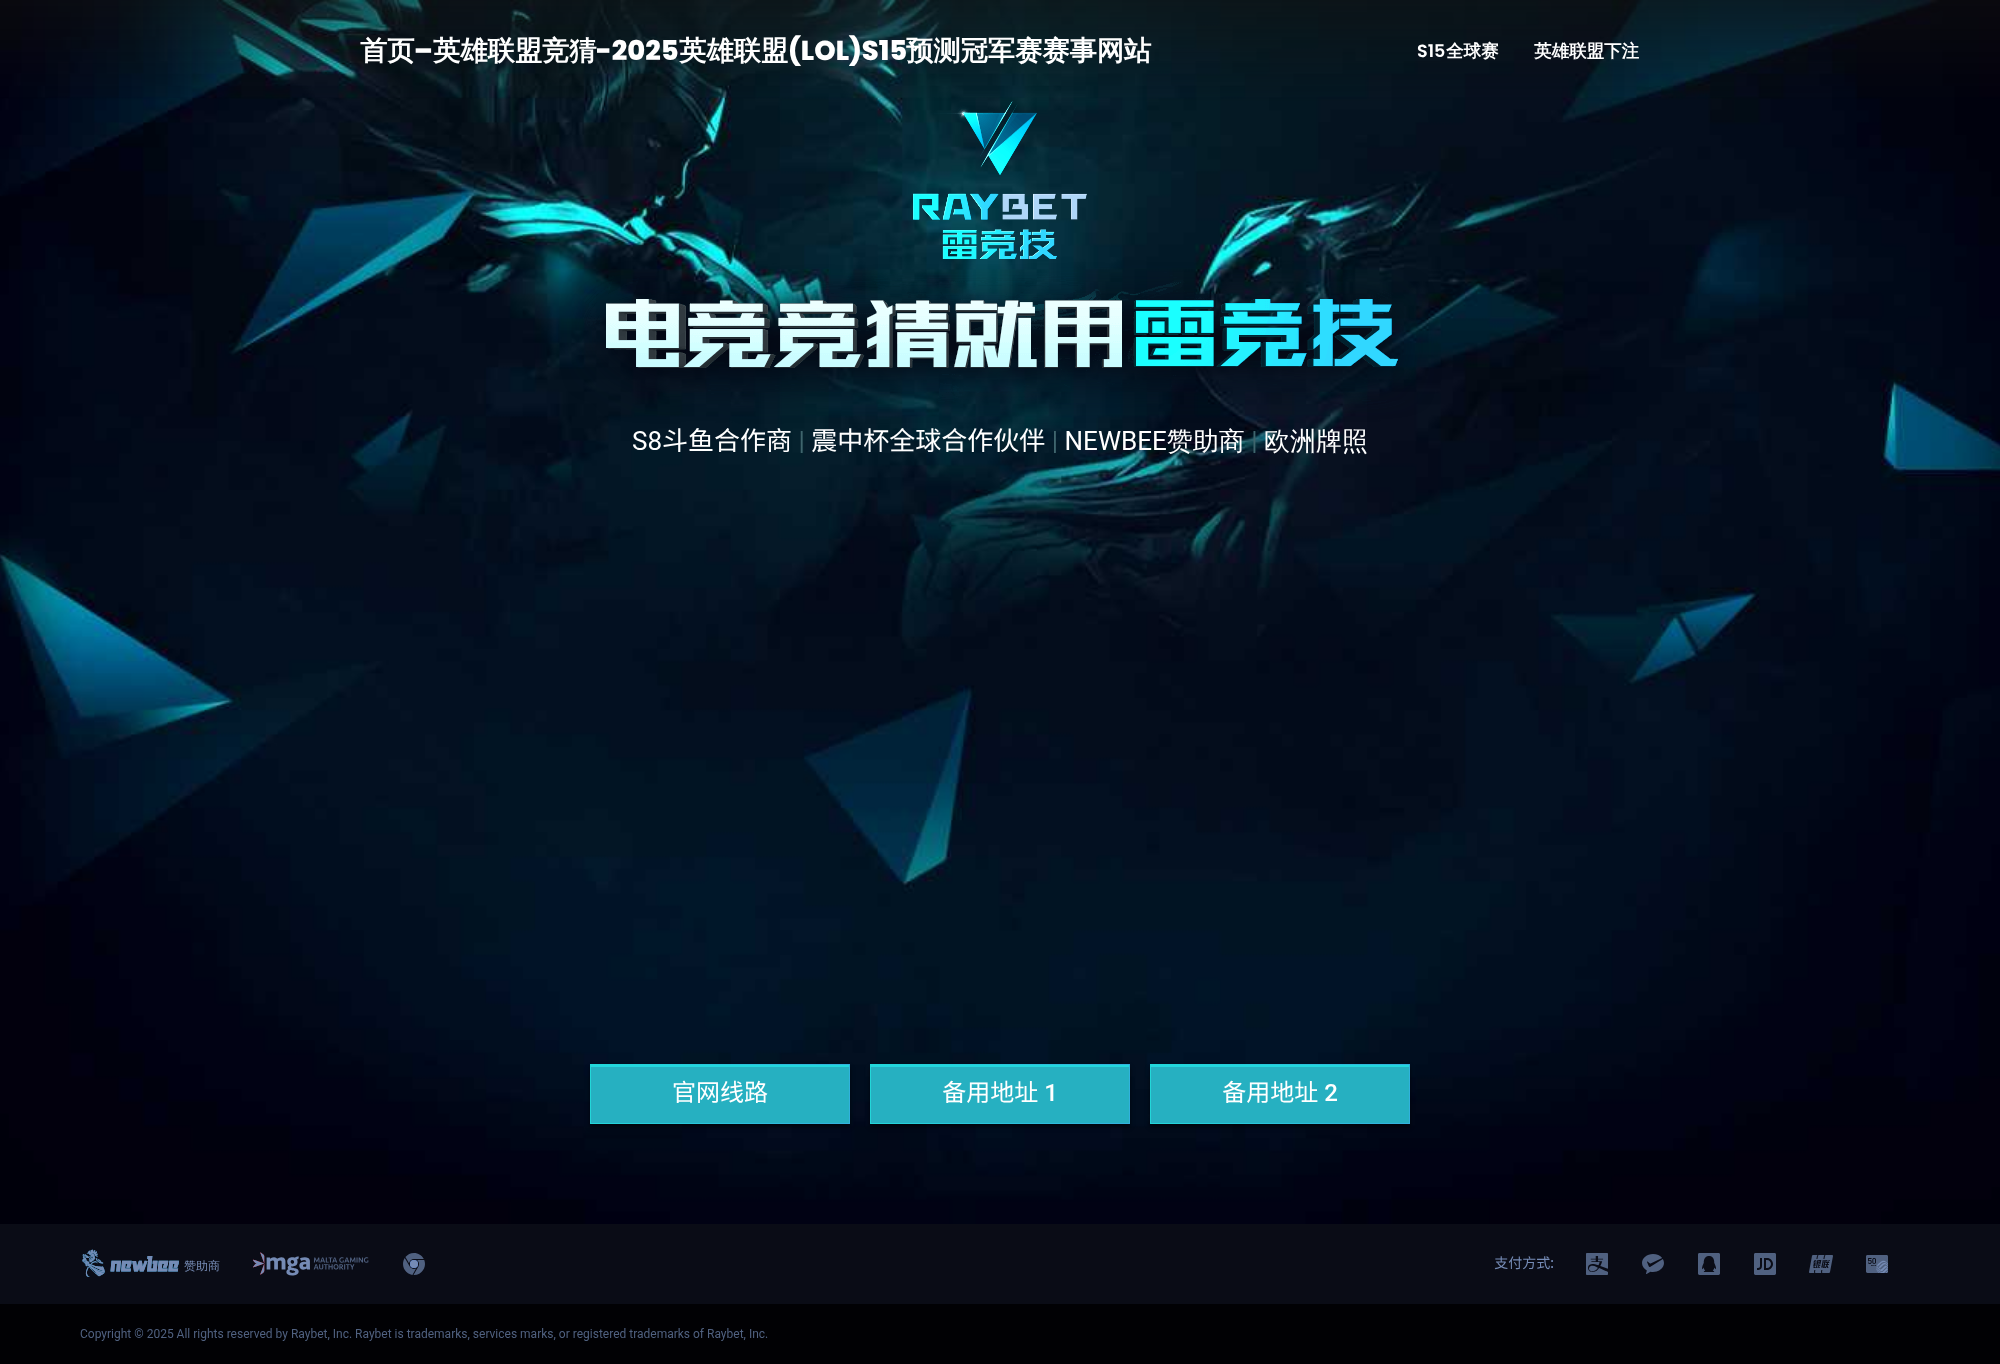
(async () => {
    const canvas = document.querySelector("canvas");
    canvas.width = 2000;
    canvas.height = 1364;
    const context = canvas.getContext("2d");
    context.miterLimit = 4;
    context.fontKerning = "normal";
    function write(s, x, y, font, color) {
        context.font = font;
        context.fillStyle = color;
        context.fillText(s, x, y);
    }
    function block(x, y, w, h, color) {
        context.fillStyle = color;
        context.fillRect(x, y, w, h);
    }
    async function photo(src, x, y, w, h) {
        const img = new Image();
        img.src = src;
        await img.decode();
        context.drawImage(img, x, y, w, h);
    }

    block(0, 0, 2000, 1364, "rgb(255, 255, 255)");
    await photo("media/1.png", 0, 0, 2000, 1364);
    write("首页", 360, 60, "bold 27.25px WenQuanYi Zen Hei", "rgb(255, 255, 255)");
    write("–", 414, 60, "800 27.25px Poppins", "rgb(255, 255, 255)");
    write("英雄联盟竞猜", 433, 60, "bold 27.25px WenQuanYi Zen Hei", "rgb(255, 255, 255)");
    write("-2025", 596, 60, "800 27.25px Poppins", "rgb(255, 255, 255)");
    write("英雄联盟", 679, 60, "bold 27.25px WenQuanYi Zen Hei", "rgb(255, 255, 255)");
    write("(LOL)S15", 788, 60, "800 27.25px Poppins", "rgb(255, 255, 255)");
    write("预测冠军赛赛事网站", 906, 60, "bold 27.25px WenQuanYi Zen Hei", "rgb(255, 255, 255)");
    write("S15", 1417, 57, "600 17.5px Poppins", "rgb(255, 255, 255)");
    write("全球赛", 1446, 57, "bold 17.5px WenQuanYi Zen Hei", "rgb(255, 255, 255)");
    write("英雄联盟下注", 1534, 57, "bold 17.5px WenQuanYi Zen Hei", "rgb(255, 255, 255)");
})();
